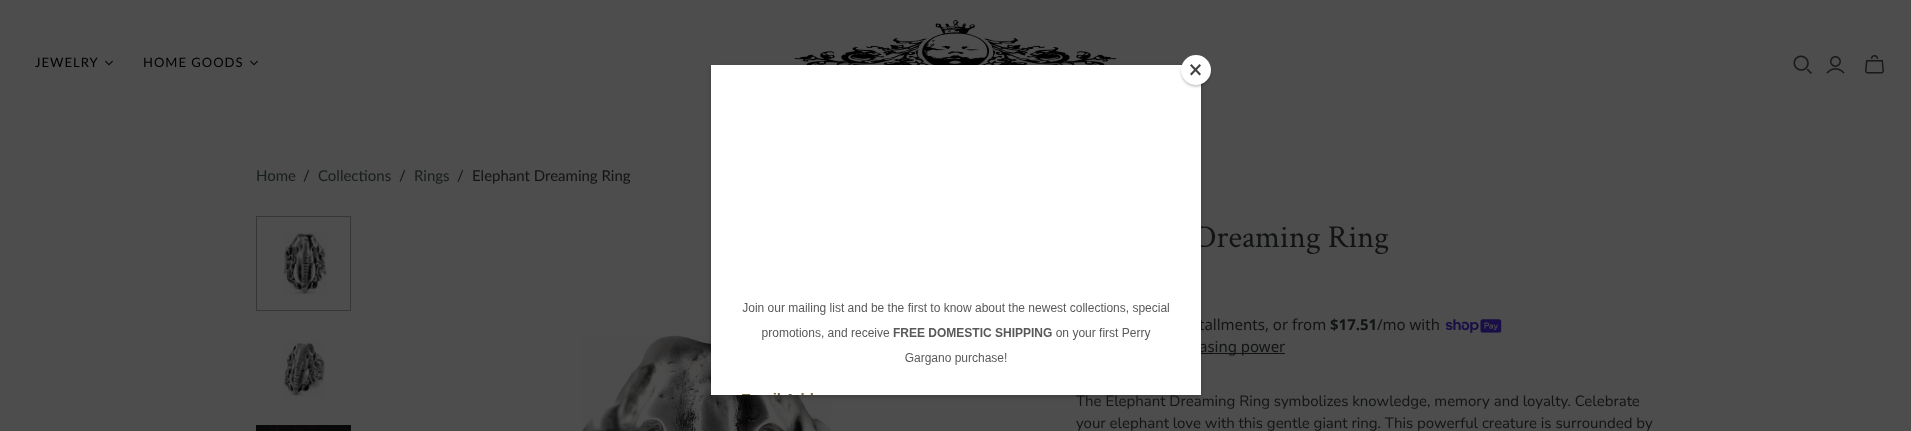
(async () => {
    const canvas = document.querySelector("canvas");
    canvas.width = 1911;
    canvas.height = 431;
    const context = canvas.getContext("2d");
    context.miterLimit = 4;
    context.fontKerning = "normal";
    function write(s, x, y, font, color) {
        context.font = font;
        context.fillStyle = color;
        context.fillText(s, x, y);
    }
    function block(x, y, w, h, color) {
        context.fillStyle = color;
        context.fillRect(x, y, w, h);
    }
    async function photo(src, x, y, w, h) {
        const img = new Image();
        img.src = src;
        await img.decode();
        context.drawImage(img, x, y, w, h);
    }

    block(0, 0, 1911, 431, "rgb(77, 77, 77)");
    context.letterSpacing = "1px";
    write("JEWELRY", 35, 67, "13px Lato", "rgb(0, 0, 0)");
    await photo("media/1.png", 105, 60, 8, 6);
    write("HOME GOODS", 143, 67, "13px Lato", "rgb(0, 0, 0)");
    await photo("media/1.png", 250, 60, 8, 6);
    await photo("media/2.png", 794, 20, 323, 45);
    await photo("media/3.png", 1793, 55, 19, 19);
    await photo("media/4.png", 1826, 56, 19, 18);
    await photo("media/5.png", 1865, 55, 19, 19);
    await photo("media/10.png", 582, 335, 249, 96);
    block(1201, 353, 84, 1, "rgb(17, 20, 18)");
    context.fillStyle = "rgba(0, 0, 0, 0.2)";
    context.filter = "blur(2px)";
    context.beginPath();
    context.rect(711, 67, 490, 330);
    context.fill();
    context.filter = "none";
    context.letterSpacing = "0px";
    write("Dreaming Ring", 1194, 247, "32px Crimson Text", "rgb(17, 20, 18)");
    write("tallments, or from", 1199, 330, "15px Noto Sans", "rgb(17, 20, 18)");
    write("asing power", 1199, 352, "15px Noto Sans", "rgb(17, 20, 18)");
    await photo("media/6.png", 711, 65, 490, 330);
    context.fillStyle = "rgba(0, 0, 0, 0.2)";
    context.filter = "blur(1px)";
    context.beginPath();
    context.roundRect(1181, 57, 30, 30, 15);
    context.fill();
    context.filter = "none";
    context.fillStyle = "rgb(255, 255, 255)";
    context.beginPath();
    context.arc(1196, 70, 15, 0, Math.PI * 2);
    context.fill();
    context.fillStyle = "rgb(65, 65, 65)";
    context.beginPath();
    context.moveTo(1199.5, 64);
    context.lineTo(1201, 65.5);
    context.lineTo(1191.5, 75.5);
    context.lineTo(1190, 74);
    context.closePath();
    context.fill();
    context.beginPath();
    context.moveTo(1190, 65.5);
    context.lineTo(1191.5, 64);
    context.lineTo(1201, 74);
    context.lineTo(1199.5, 75.5);
    context.closePath();
    context.fill();
    write("Home", 256, 181, "15px Lato", "rgb(23, 29, 26)");
    write("/", 303, 181, "15px Lato", "rgb(17, 20, 18)");
    write("Collections", 318, 181, "15px Lato", "rgb(23, 29, 26)");
    write("/", 399, 181, "15px Lato", "rgb(17, 20, 18)");
    write("Rings", 414, 181, "15px Lato", "rgb(23, 29, 26)");
    write("/", 457, 181, "15px Lato", "rgb(17, 20, 18)");
    write("Elephant Dreaming Ring", 472, 181, "15px Lato", "rgb(17, 20, 18)");
    await photo("media/7.png", 284, 232, 43, 63);
    context.strokeStyle = "rgb(54, 54, 54)";
    context.strokeRect(256.5, 216.5, 94, 94);
    await photo("media/8.png", 283, 340, 42, 57);
    await photo("media/9.png", 256, 425, 95, 6);
    write("$17.51", 1330, 330, "bold 15px Noto Sans", "rgb(17, 20, 18)");
    write("/mo with", 1377, 330, "15px Noto Sans", "rgb(17, 20, 18)");
    await photo("media/11.png", 1445, 319, 57, 14);
    write("The Elephant Dreaming Ring symbolizes knowledge, memory and loyalty. Celebrate", 1076, 406, "15px Nunito Sans", "rgb(17, 20, 18)");
    write("your elephant love with this gentle giant ring. This powerful creature is surrounded by", 1076, 428, "15px Nunito Sans", "rgb(17, 20, 18)");
})();
